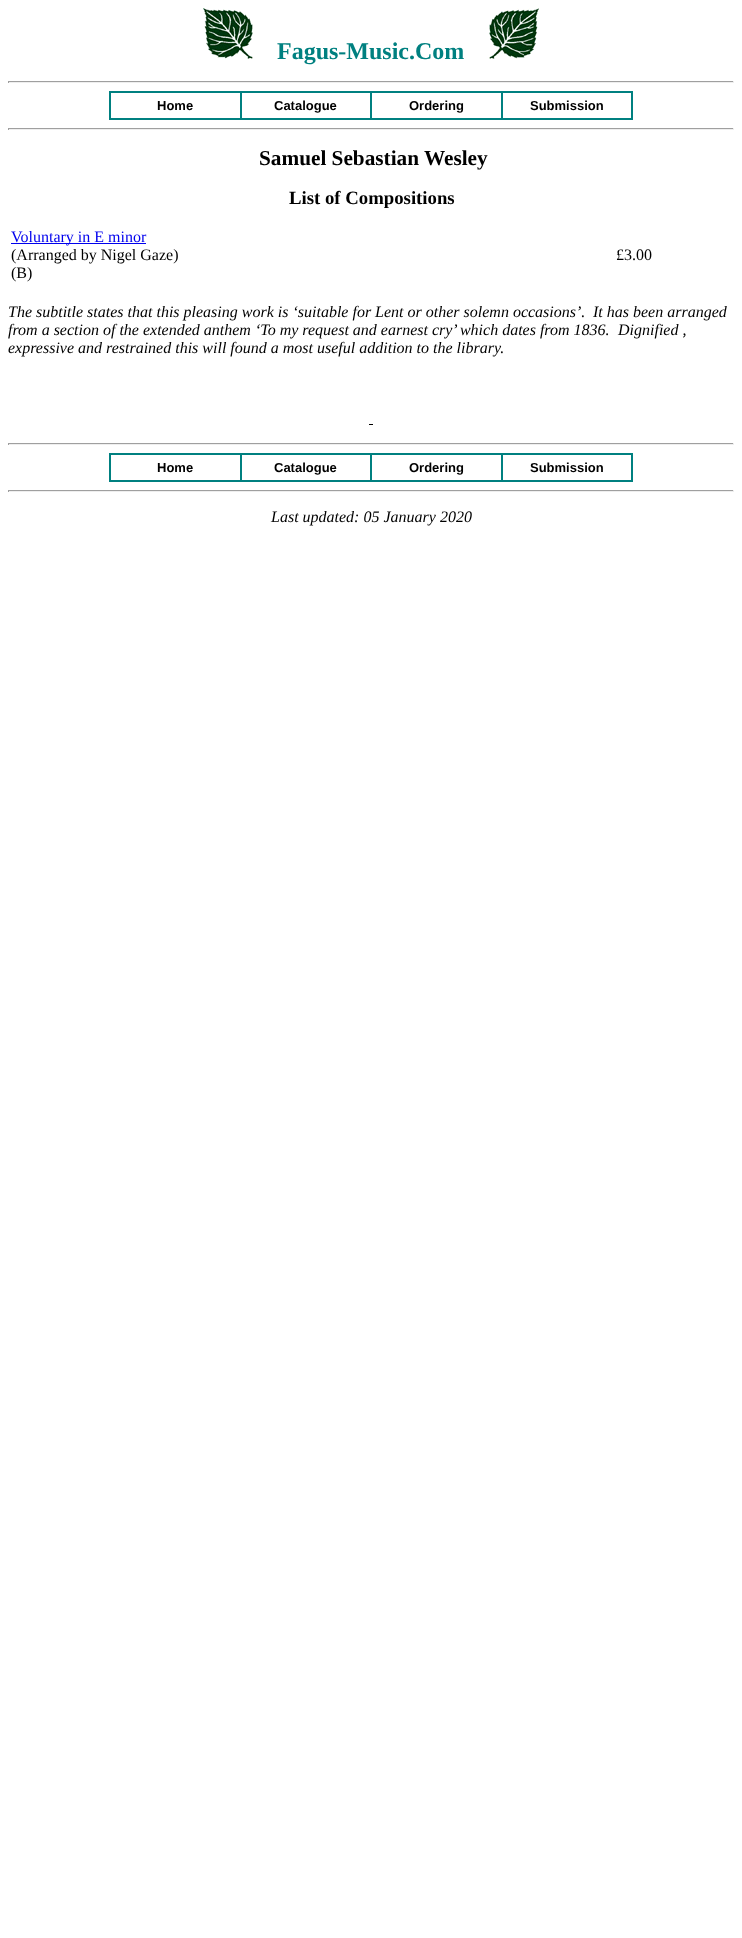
(async () => {
    const canvas = document.querySelector("canvas");
    canvas.width = 742;
    canvas.height = 1938;
    const context = canvas.getContext("2d");
    context.miterLimit = 4;
    context.fontKerning = "normal";
    function write(s, x, y, font, color) {
        context.font = font;
        context.fillStyle = color;
        context.fillText(s, x, y);
    }
    function block(x, y, w, h, color) {
        context.fillStyle = color;
        context.fillRect(x, y, w, h);
    }
    async function photo(src, x, y, w, h) {
        const img = new Image();
        img.src = src;
        await img.decode();
        context.drawImage(img, x, y, w, h);
    }

    block(0, 0, 742, 1938, "rgb(255, 255, 255)");
    await photo("media/1.png", 203, 8, 50, 51);
    write("Fagus-Music.Com", 277, 59, "bold 24px Liberation Serif", "rgb(0, 128, 128)");
    await photo("media/2.png", 489, 8, 50, 51);
    block(8, 81, 726, 1, "rgb(159, 159, 159)");
    block(733, 81, 1, 2, "rgb(238, 238, 238)");
    block(8, 82, 726, 1, "rgb(238, 238, 238)");
    block(8, 81, 1, 2, "rgb(159, 159, 159)");
    context.strokeStyle = "rgb(0, 128, 128)";
    context.strokeRect(109.5, 91.5, 523, 28);
    context.strokeRect(110.5, 92.5, 130, 26);
    write("Home", 157, 110, "bold 13px Liberation Sans", "rgb(0, 0, 0)");
    context.strokeRect(241.5, 92.5, 129, 26);
    write("Catalogue", 274, 110, "bold 13px Liberation Sans", "rgb(0, 0, 0)");
    context.strokeRect(371.5, 92.5, 130, 26);
    write("Ordering", 409, 110, "bold 13px Liberation Sans", "rgb(0, 0, 0)");
    context.strokeRect(502.5, 92.5, 129, 26);
    write("Submission", 530, 110, "bold 13px Liberation Sans", "rgb(0, 0, 0)");
    block(8, 128, 726, 1, "rgb(159, 159, 159)");
    block(733, 128, 1, 2, "rgb(238, 238, 238)");
    block(8, 129, 726, 1, "rgb(238, 238, 238)");
    block(8, 128, 1, 2, "rgb(159, 159, 159)");
    write("Samuel Sebastian Wesley", 259, 165, "bold 21.25px Liberation Serif", "rgb(0, 0, 0)");
    write("List of Compositions", 289, 204, "bold 18.75px Liberation Serif", "rgb(0, 0, 0)");
    block(11, 243, 135, 1, "rgb(0, 0, 238)");
    write("Voluntary in E minor", 11, 242, "16px Liberation Serif", "rgb(0, 0, 238)");
    write("(Arranged by Nigel Gaze)", 11, 260, "16px Liberation Serif", "rgb(0, 0, 0)");
    write("(B)", 11, 278, "16px Liberation Serif", "rgb(0, 0, 0)");
    write("£3.00", 616, 260, "16px Liberation Serif", "rgb(0, 0, 0)");
    write("The subtitle states that this pleasing work is ‘suitable for Lent or other solemn occasions’.", 8, 317, "italic 16px Liberation Serif", "rgb(0, 0, 0)");
    write("It has been arranged", 593, 317, "italic 16px Liberation Serif", "rgb(0, 0, 0)");
    write("from a section of the extended anthem ‘To my request and earnest cry’ which dates from 1836.", 8, 335, "italic 16px Liberation Serif", "rgb(0, 0, 0)");
    write("Dignified ,", 618, 335, "italic 16px Liberation Serif", "rgb(0, 0, 0)");
    write("expressive and restrained this will found a most useful addition to the library.", 8, 353, "italic 16px Liberation Serif", "rgb(0, 0, 0)");
    block(369, 424, 4, 1, "rgb(0, 0, 0)");
    block(8, 443, 726, 1, "rgb(159, 159, 159)");
    block(733, 443, 1, 2, "rgb(238, 238, 238)");
    block(8, 444, 726, 1, "rgb(238, 238, 238)");
    block(8, 443, 1, 2, "rgb(159, 159, 159)");
    context.strokeRect(109.5, 453.5, 523, 28);
    context.strokeRect(110.5, 454.5, 130, 26);
    write("Home", 157, 472, "bold 13px Liberation Sans", "rgb(0, 0, 0)");
    context.strokeRect(241.5, 454.5, 129, 26);
    write("Catalogue", 274, 472, "bold 13px Liberation Sans", "rgb(0, 0, 0)");
    context.strokeRect(371.5, 454.5, 130, 26);
    write("Ordering", 409, 472, "bold 13px Liberation Sans", "rgb(0, 0, 0)");
    context.strokeRect(502.5, 454.5, 129, 26);
    write("Submission", 530, 472, "bold 13px Liberation Sans", "rgb(0, 0, 0)");
    block(8, 490, 726, 1, "rgb(159, 159, 159)");
    block(733, 490, 1, 2, "rgb(238, 238, 238)");
    block(8, 491, 726, 1, "rgb(238, 238, 238)");
    block(8, 490, 1, 2, "rgb(159, 159, 159)");
    write("Last updated: 05 January 2020", 271, 522, "italic 16px Liberation Serif", "rgb(0, 0, 0)");
})();
